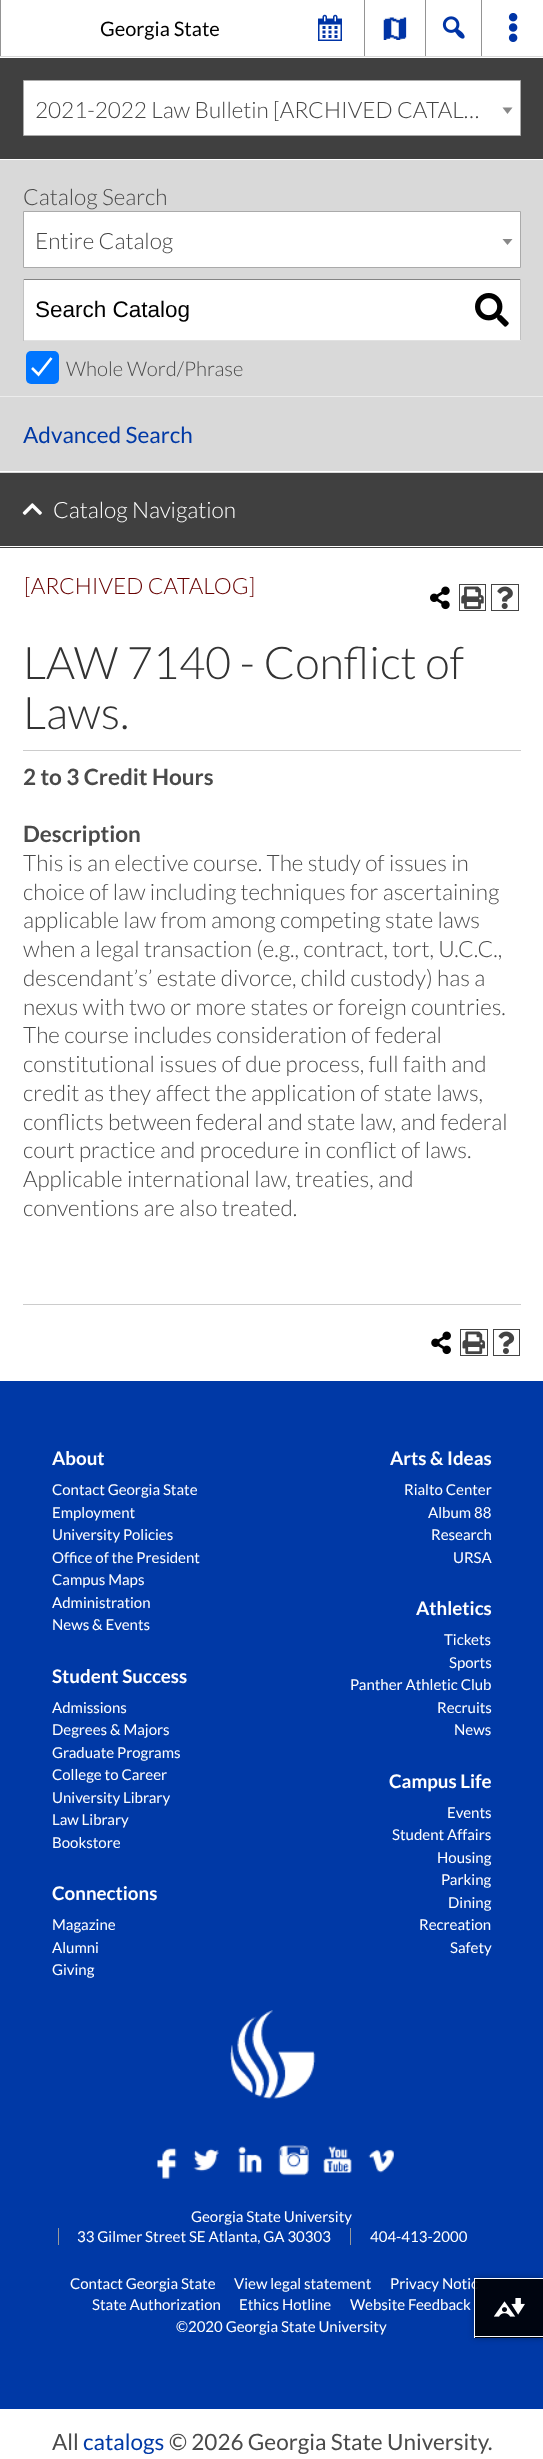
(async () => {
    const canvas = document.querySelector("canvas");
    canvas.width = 543;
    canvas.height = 2459;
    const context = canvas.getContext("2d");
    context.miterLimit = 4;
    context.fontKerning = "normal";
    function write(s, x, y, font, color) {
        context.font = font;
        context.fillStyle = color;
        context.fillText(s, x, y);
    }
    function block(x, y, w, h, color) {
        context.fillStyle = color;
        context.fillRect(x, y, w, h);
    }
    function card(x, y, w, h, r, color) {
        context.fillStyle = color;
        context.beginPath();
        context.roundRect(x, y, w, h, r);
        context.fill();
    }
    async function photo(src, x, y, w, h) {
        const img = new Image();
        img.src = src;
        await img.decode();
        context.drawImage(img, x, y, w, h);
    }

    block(0, 0, 543, 2459, "rgb(255, 255, 255)");
    block(0, 56, 543, 1, "rgb(217, 217, 217)");
    block(0, 0, 1, 56, "rgb(148, 148, 148)");
    write("Georgia State", 100, 36, "20px Lato", "rgb(0, 0, 0)");
    await photo("media/1.png", 318, 14, 24, 27);
    block(364, 0, 1, 56, "rgb(148, 148, 148)");
    await photo("media/2.png", 383, 17, 24, 23);
    block(425, 0, 1, 56, "rgb(148, 148, 148)");
    await photo("media/3.png", 442, 16, 23, 23);
    block(481, 0, 1, 56, "rgb(148, 148, 148)");
    await photo("media/4.png", 508, 13, 10, 29);
    block(0, 58, 543, 101, "rgb(64, 64, 64)");
    context.fillStyle = "rgb(255, 255, 255)";
    context.beginPath();
    context.rect(23.5, 80.5, 497, 55);
    context.fill();
    context.strokeStyle = "rgb(170, 170, 170)";
    context.stroke();
    write("2021-2022 Law Bulletin [ARCHIVED CATAL…", 35, 118, "300 22.5px Lato", "rgb(68, 68, 68)");
    context.fillStyle = "rgb(136, 136, 136)";
    context.beginPath();
    context.moveTo(502.5, 107.5);
    context.lineTo(512.5, 107.5);
    context.lineTo(507.5, 114);
    context.closePath();
    context.fill();
    block(0, 160, 543, 313, "rgb(217, 217, 217)");
    block(0, 471, 543, 1, "rgb(255, 255, 255)");
    write("Catalog Search", 23, 205, "300 22.5px Lato", "rgb(74, 74, 74)");
    context.fillStyle = "rgb(255, 255, 255)";
    context.beginPath();
    context.rect(23.5, 211.5, 497, 56);
    context.fill();
    context.stroke();
    write("Entire Catalog", 35, 249, "300 22.5px Lato", "rgb(68, 68, 68)");
    context.fillStyle = "rgb(136, 136, 136)";
    context.beginPath();
    context.moveTo(502.5, 239);
    context.lineTo(512.5, 239);
    context.lineTo(507.5, 245);
    context.closePath();
    context.fill();
    block(24, 280, 496, 60, "rgb(255, 255, 255)");
    block(23, 279, 498, 1, "rgb(132, 132, 132)");
    block(520, 279, 1, 62, "rgb(193, 193, 193)");
    block(23, 340, 498, 1, "rgb(225, 225, 225)");
    block(23, 279, 1, 62, "rgb(193, 193, 193)");
    write("Search Catalog", 35, 317, "22.5px Liberation Sans", "rgb(0, 0, 0)");
    await photo("media/5.png", 475, 293, 34, 34);
    card(26, 351, 33, 33, 5, "rgb(0, 117, 255)");
    context.beginPath();
    context.moveTo(32, 368);
    context.lineTo(38.5, 374.5);
    context.lineTo(51.5, 358);
    context.strokeStyle = "rgb(255, 255, 255)";
    context.lineWidth = 2.6;
    context.stroke();
    write("Whole Word/Phrase", 66, 376, "300 20.25px Lato", "rgb(74, 74, 74)");
    block(0, 396, 543, 1, "rgb(236, 236, 236)");
    write("Advanced Search", 23, 443, "22.5px Lato", "rgb(0, 57, 166)");
    block(0, 473, 543, 75, "rgb(64, 64, 64)");
    block(0, 546, 543, 1, "rgb(255, 255, 255)");
    await photo("media/6.png", 22, 503, 20, 12);
    write("Catalog Navigation", 53, 518, "300 22.5px Lato", "rgb(255, 255, 255)");
    write("[ARCHIVED CATALOG]", 24, 594, "300 22.5px Lato", "rgb(102, 0, 0)");
    await photo("media/7.png", 430, 586, 20, 24);
    context.strokeStyle = "rgb(68, 68, 68)";
    context.lineWidth = 1;
    context.strokeRect(459.5, 584.5, 26, 26);
    await photo("media/8.png", 461, 586, 23, 24);
    context.strokeRect(491.5, 584.5, 27, 26);
    await photo("media/9.png", 497, 586, 16, 23);
    write("LAW 7140 - Conflict of", 23, 679, "300 45px Lato", "rgb(51, 51, 51)");
    write("Laws.", 23, 729, "300 45px Lato", "rgb(51, 51, 51)");
    block(23, 750, 498, 1, "rgb(204, 204, 204)");
    write("2 to 3 Credit Hours", 23, 785, "bold 22.5px Lato", "rgb(74, 74, 74)");
    write("Description", 23, 842, "bold 22.5px Lato", "rgb(74, 74, 74)");
    write("This is an elective course. The study of issues in", 23, 871, "300 22.5px Lato", "rgb(74, 74, 74)");
    write("choice of law including techniques for ascertaining", 23, 900, "300 22.5px Lato", "rgb(74, 74, 74)");
    write("applicable law from among competing state laws", 23, 928, "300 22.5px Lato", "rgb(74, 74, 74)");
    write("when a legal transaction (e.g., contract, tort, U.C.C.,", 23, 957, "300 22.5px Lato", "rgb(74, 74, 74)");
    write("descendant’s’ estate divorce, child custody) has a", 23, 986, "300 22.5px Lato", "rgb(74, 74, 74)");
    write("nexus with two or more states or foreign countries.", 23, 1015, "300 22.5px Lato", "rgb(74, 74, 74)");
    write("The course includes consideration of federal", 23, 1043, "300 22.5px Lato", "rgb(74, 74, 74)");
    write("constitutional issues of due process, full faith and", 23, 1072, "300 22.5px Lato", "rgb(74, 74, 74)");
    write("credit as they affect the application of state laws,", 23, 1101, "300 22.5px Lato", "rgb(74, 74, 74)");
    write("conflicts between federal and state law, and federal", 23, 1130, "300 22.5px Lato", "rgb(74, 74, 74)");
    write("court practice and procedure in conflict of laws.", 23, 1158, "300 22.5px Lato", "rgb(74, 74, 74)");
    write("Applicable international law, treaties, and", 23, 1187, "300 22.5px Lato", "rgb(74, 74, 74)");
    write("conventions are also treated.", 23, 1216, "300 22.5px Lato", "rgb(74, 74, 74)");
    block(23, 1304, 498, 1, "rgb(204, 204, 204)");
    await photo("media/10.png", 431, 1331, 20, 24);
    context.strokeRect(460.5, 1329.5, 27, 26);
    await photo("media/11.png", 462, 1331, 23, 24);
    context.strokeRect(493.5, 1329.5, 26, 26);
    await photo("media/12.png", 498, 1331, 17, 23);
    block(0, 1381, 543, 1028, "rgb(0, 57, 166)");
    write("About", 52, 1465, "bold 18.75px Lato", "rgb(255, 255, 255)");
    write("Contact Georgia State", 52, 1495, "15px Lato", "rgb(255, 255, 255)");
    write("Employment", 52, 1518, "15px Lato", "rgb(255, 255, 255)");
    write("University Policies", 52, 1540, "15px Lato", "rgb(255, 255, 255)");
    write("Office of the President", 52, 1563, "15px Lato", "rgb(255, 255, 255)");
    write("Campus Maps", 52, 1585, "15px Lato", "rgb(255, 255, 255)");
    write("Administration", 52, 1608, "15px Lato", "rgb(255, 255, 255)");
    write("News & Events", 52, 1630, "15px Lato", "rgb(255, 255, 255)");
    write("Arts & Ideas", 390, 1465, "bold 18.75px Lato", "rgb(255, 255, 255)");
    write("Rialto Center", 404, 1495, "15px Lato", "rgb(255, 255, 255)");
    write("Album 88", 428, 1518, "15px Lato", "rgb(255, 255, 255)");
    write("Research", 431, 1540, "15px Lato", "rgb(255, 255, 255)");
    write("URSA", 453, 1563, "15px Lato", "rgb(255, 255, 255)");
    write("Student Success", 52, 1683, "bold 18.75px Lato", "rgb(255, 255, 255)");
    write("Admissions", 52, 1713, "15px Lato", "rgb(255, 255, 255)");
    write("Degrees & Majors", 52, 1735, "15px Lato", "rgb(255, 255, 255)");
    write("Graduate Programs", 52, 1758, "15px Lato", "rgb(255, 255, 255)");
    write("College to Career", 52, 1780, "15px Lato", "rgb(255, 255, 255)");
    write("University Library", 52, 1803, "15px Lato", "rgb(255, 255, 255)");
    write("Law Library", 52, 1825, "15px Lato", "rgb(255, 255, 255)");
    write("Bookstore", 52, 1848, "15px Lato", "rgb(255, 255, 255)");
    write("Athletics", 416, 1615, "bold 18.75px Lato", "rgb(255, 255, 255)");
    write("Tickets", 444, 1645, "15px Lato", "rgb(255, 255, 255)");
    write("Sports", 449, 1668, "15px Lato", "rgb(255, 255, 255)");
    write("Panther Athletic Club", 350, 1690, "15px Lato", "rgb(255, 255, 255)");
    write("Recruits", 437, 1713, "15px Lato", "rgb(255, 255, 255)");
    write("News", 454, 1735, "15px Lato", "rgb(255, 255, 255)");
    write("Connections", 52, 1900, "bold 18.75px Lato", "rgb(255, 255, 255)");
    write("Magazine", 52, 1930, "15px Lato", "rgb(255, 255, 255)");
    write("Alumni", 52, 1953, "15px Lato", "rgb(255, 255, 255)");
    write("Giving", 52, 1975, "15px Lato", "rgb(255, 255, 255)");
    write("Campus Life", 389, 1788, "bold 18.75px Lato", "rgb(255, 255, 255)");
    write("Events", 447, 1818, "15px Lato", "rgb(255, 255, 255)");
    write("Student Affairs", 392, 1840, "15px Lato", "rgb(255, 255, 255)");
    write("Housing", 437, 1863, "15px Lato", "rgb(255, 255, 255)");
    write("Parking", 441, 1885, "15px Lato", "rgb(255, 255, 255)");
    write("Dining", 448, 1908, "15px Lato", "rgb(255, 255, 255)");
    write("Recreation", 419, 1930, "15px Lato", "rgb(255, 255, 255)");
    write("Safety", 450, 1953, "15px Lato", "rgb(255, 255, 255)");
    await photo("media/13.png", 230, 2010, 86, 89);
    await photo("media/14.png", 157, 2148, 20, 31);
    await photo("media/15.png", 193, 2148, 26, 24);
    await photo("media/16.png", 238, 2146, 24, 27);
    await photo("media/17.png", 278, 2145, 31, 31);
    await photo("media/18.png", 323, 2146, 29, 27);
    await photo("media/19.png", 368, 2149, 26, 24);
    write("Georgia State University", 191, 2222, "15px Lato", "rgb(255, 255, 255)");
    block(58, 2228, 1, 17, "rgb(153, 153, 153)");
    write("33 Gilmer Street SE Atlanta, GA 30303", 77, 2242, "15px Lato", "rgb(255, 255, 255)");
    block(350, 2228, 1, 17, "rgb(153, 153, 153)");
    write("404-413-2000", 370, 2242, "15px Lato", "rgb(255, 255, 255)");
    write("Contact Georgia State", 70, 2289, "15px Lato", "rgb(255, 255, 255)");
    write("View legal statement", 234, 2289, "15px Lato", "rgb(255, 255, 255)");
    write("Privacy Notic", 390, 2289, "15px Lato", "rgb(255, 255, 255)");
    write("State Authorization", 92, 2310, "15px Lato", "rgb(255, 255, 255)");
    write("Ethics Hotline", 239, 2310, "15px Lato", "rgb(255, 255, 255)");
    write("Website Feedback", 350, 2310, "15px Lato", "rgb(255, 255, 255)");
    write("©2020 Georgia State University", 176, 2332, "15px Lato", "rgb(255, 255, 255)");
    write("All", 52, 2450, "22.5px Lato", "rgb(74, 74, 74)");
    write("catalogs", 83, 2450, "22.5px Lato", "rgb(0, 57, 166)");
    write("© 2026 Georgia State University.", 169, 2450, "22.5px Lato", "rgb(74, 74, 74)");
    context.save();
    context.beginPath();
    context.moveTo(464, 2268);
    context.lineTo(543, 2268);
    context.lineTo(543, 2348);
    context.lineTo(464, 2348);
    context.closePath();
    context.moveTo(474, 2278);
    context.lineTo(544, 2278);
    context.lineTo(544, 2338);
    context.lineTo(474, 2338);
    context.closePath();
    context.clip("evenodd");
    context.fillStyle = "rgba(0, 0, 0, 0.3)";
    context.filter = "blur(3px)";
    context.beginPath();
    context.rect(474, 2278, 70, 60);
    context.fill();
    context.filter = "none";
    context.restore();
    block(475, 2279, 68, 59, "rgba(0, 0, 0, 0.9)");
    block(474, 2278, 69, 1, "rgb(255, 255, 255)");
    block(474, 2336, 69, 1, "rgb(255, 255, 255)");
    block(474, 2278, 1, 60, "rgb(255, 255, 255)");
    await photo("media/20.png", 494, 2298, 31, 19);
})();
